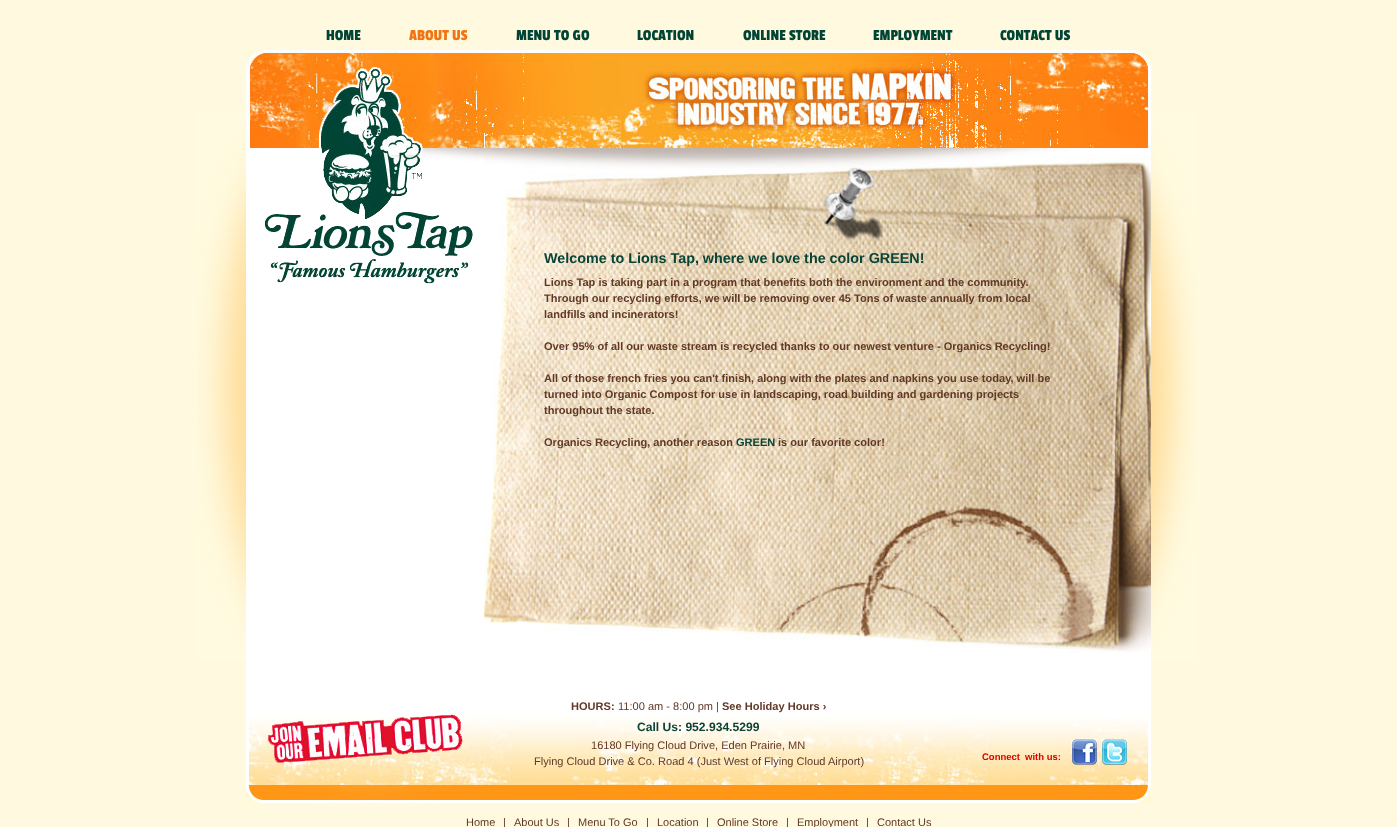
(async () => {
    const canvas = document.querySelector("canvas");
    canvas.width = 1397;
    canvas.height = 827;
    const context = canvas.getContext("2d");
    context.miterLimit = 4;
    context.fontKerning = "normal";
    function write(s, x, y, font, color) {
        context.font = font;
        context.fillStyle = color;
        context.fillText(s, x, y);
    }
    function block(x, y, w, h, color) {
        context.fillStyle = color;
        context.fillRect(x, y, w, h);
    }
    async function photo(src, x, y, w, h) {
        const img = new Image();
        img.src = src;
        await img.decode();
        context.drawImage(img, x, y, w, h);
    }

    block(0, 0, 1397, 827, "rgb(255, 250, 223)");
    await photo("media/1.png", 197, 112, 1000, 549);
    block(246, 148, 905, 568, "rgb(255, 255, 255)");
    write("HOME", 326, 40, "16px Passion One", "rgb(0, 68, 53)");
    write("ABOUT US", 409, 40, "16px Passion One", "rgb(242, 116, 16)");
    write("MENU TO GO", 516, 40, "16px Passion One", "rgb(0, 68, 53)");
    write("LOCATION", 637, 40, "16px Passion One", "rgb(0, 68, 53)");
    write("ONLINE STORE", 743, 40, "16px Passion One", "rgb(0, 68, 53)");
    write("EMPLOYMENT", 873, 40, "16px Passion One", "rgb(0, 68, 53)");
    write("CONTACT US", 1000, 40, "16px Passion One", "rgb(0, 68, 53)");
    await photo("media/2.png", 246, 50, 238, 98);
    await photo("media/3.png", 484, 50, 667, 98);
    await photo("media/5.png", 409, 148, 75, 27);
    await photo("media/4.png", 265, 67, 208, 217);
    await photo("media/6.png", 484, 148, 667, 505);
    write("Welcome to Lions Tap, where we love the color GREEN!", 544, 263, "bold 14.35px Liberation Sans", "rgb(11, 67, 53)");
    write("Lions Tap is taking part in a program that benefits both the environment and the community.", 544, 286, "bold 11.05px Liberation Sans", "rgb(97, 56, 37)");
    write("Through our recycling efforts, we will be removing over 45 Tons of waste annually from local", 544, 302, "bold 11.05px Liberation Sans", "rgb(97, 56, 37)");
    write("landfills and incinerators!", 544, 318, "bold 11.05px Liberation Sans", "rgb(97, 56, 37)");
    write("Over 95% of all our waste stream is recycled thanks to our newest venture - Organics Recycling!", 544, 350, "bold 11.05px Liberation Sans", "rgb(97, 56, 37)");
    write("All of those french fries you can't finish, along with the plates and napkins you use today, will be", 544, 382, "bold 11.05px Liberation Sans", "rgb(97, 56, 37)");
    write("turned into Organic Compost for use in landscaping, road building and gardening projects", 544, 398, "bold 11.05px Liberation Sans", "rgb(97, 56, 37)");
    write("throughout the state.", 544, 414, "bold 11.05px Liberation Sans", "rgb(97, 56, 37)");
    write("Organics Recycling, another reason", 544, 446, "bold 11.05px Liberation Sans", "rgb(97, 56, 37)");
    write("GREEN", 736, 446, "bold 11.05px Liberation Sans", "rgb(11, 67, 53)");
    write("is our favorite color!", 778, 446, "bold 11.05px Liberation Sans", "rgb(97, 56, 37)");
    await photo("media/7.png", 249, 716, 899, 69);
    block(1148, 716, 3, 69, "rgb(255, 255, 255)");
    block(246, 716, 3, 69, "rgb(255, 255, 255)");
    await photo("media/8.png", 268, 714, 195, 49);
    write("HOURS:", 571, 710, "bold 11.05px Liberation Sans", "rgb(97, 56, 37)");
    write("11:00 am - 8:00 pm |", 618, 710, "11.05px Liberation Sans", "rgb(97, 56, 37)");
    write("See Holiday Hours ›", 722, 710, "bold 11.05px Liberation Sans", "rgb(97, 56, 37)");
    write("Call Us: 952.934.5299", 637, 731, "bold 12.1px Liberation Sans", "rgb(11, 67, 53)");
    write("16180 Flying Cloud Drive, Eden Prairie, MN", 591, 749, "11.05px Liberation Sans", "rgb(97, 56, 37)");
    write("Flying Cloud Drive & Co. Road 4 (Just West of Flying Cloud Airport)", 534, 765, "11.05px Liberation Sans", "rgb(97, 56, 37)");
    write("Connect", 982, 760, "bold 9.5px Liberation Sans", "rgb(221, 0, 0)");
    write("with us:", 1025, 760, "bold 9.5px Liberation Sans", "rgb(221, 0, 0)");
    await photo("media/9.png", 1071, 738, 27, 28);
    await photo("media/10.png", 1101, 738, 27, 28);
    await photo("media/11.png", 246, 785, 905, 18);
    write("Home", 466, 826, "11px Liberation Sans", "rgb(97, 56, 37)");
    write("|", 503, 826, "11px Liberation Sans", "rgb(97, 56, 37)");
    write("About Us", 514, 826, "11px Liberation Sans", "rgb(97, 56, 37)");
    write("|", 567, 826, "11px Liberation Sans", "rgb(97, 56, 37)");
    write("Menu To Go", 578, 826, "11px Liberation Sans", "rgb(97, 56, 37)");
    write("|", 646, 826, "11px Liberation Sans", "rgb(97, 56, 37)");
    write("Location", 657, 826, "11px Liberation Sans", "rgb(97, 56, 37)");
    write("|", 706, 826, "11px Liberation Sans", "rgb(97, 56, 37)");
    write("Online Store", 717, 826, "11px Liberation Sans", "rgb(97, 56, 37)");
    write("|", 786, 826, "11px Liberation Sans", "rgb(97, 56, 37)");
    write("Employment", 797, 826, "11px Liberation Sans", "rgb(97, 56, 37)");
    write("|", 866, 826, "11px Liberation Sans", "rgb(97, 56, 37)");
    write("Contact Us", 877, 826, "11px Liberation Sans", "rgb(97, 56, 37)");
})();
